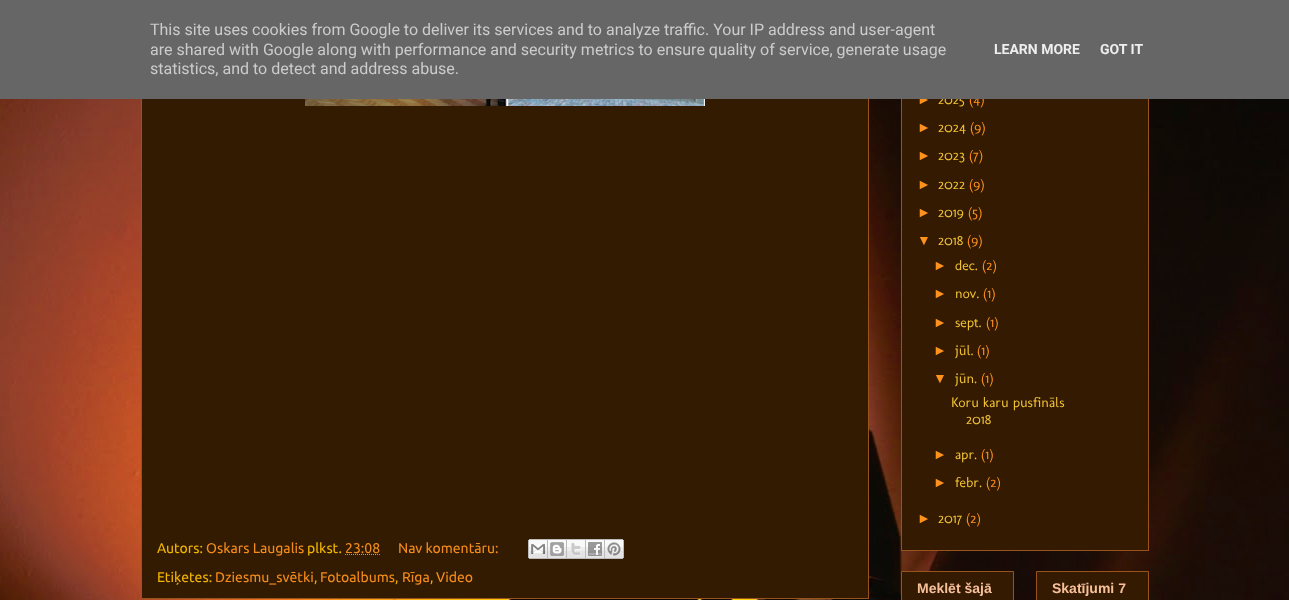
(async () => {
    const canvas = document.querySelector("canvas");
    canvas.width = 1289;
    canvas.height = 600;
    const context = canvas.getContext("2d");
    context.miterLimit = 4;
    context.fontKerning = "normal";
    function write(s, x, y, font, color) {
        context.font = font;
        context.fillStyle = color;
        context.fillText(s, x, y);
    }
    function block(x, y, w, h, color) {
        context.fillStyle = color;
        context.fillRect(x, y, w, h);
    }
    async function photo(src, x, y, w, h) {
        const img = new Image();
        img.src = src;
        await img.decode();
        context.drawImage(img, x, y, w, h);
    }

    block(0, 0, 1289, 600, "rgb(255, 255, 255)");
    await photo("media/1.png", 0, 99, 1289, 501);
    block(142, 99, 726, 499, "rgb(51, 27, 1)");
    context.strokeStyle = "rgb(153, 83, 29)";
    context.strokeRect(141.5, -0.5, 727, 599);
    block(902, 99, 246, 451, "rgb(51, 26, 1)");
    context.strokeRect(901.5, 43.5, 247, 507);
    write("►", 917, 104, "14px Liberation Sans", "rgb(255, 146, 29)");
    write("2025", 938, 104, "14px Molengo", "rgb(241, 194, 50)");
    write("(4)", 969, 104, "14px Molengo", "rgb(255, 146, 29)");
    block(0, 0, 1289, 99, "rgb(102, 102, 102)");
    write("This site uses cookies from Google to deliver its services and to analyze traffic. Your IP address and user-agent", 150, 35, "16px Roboto", "rgb(204, 204, 204)");
    write("are shared with Google along with performance and security metrics to ensure quality of service, generate usage", 150, 55, "16px Roboto", "rgb(204, 204, 204)");
    write("statistics, and to detect and address abuse.", 150, 74, "16px Roboto", "rgb(204, 204, 204)");
    write("LEARN MORE", 994, 54, "bold 14px Roboto", "rgb(238, 238, 238)");
    write("GOT IT", 1100, 54, "bold 14px Roboto", "rgb(238, 238, 238)");
    await photo("media/2.png", 305, 99, 400, 7);
    write("Autors:", 157, 553, "14px Ubuntu", "rgb(241, 181, 0)");
    write("Oskars Laugalis", 206, 553, "14px Ubuntu", "rgb(243, 140, 28)");
    write("plkst.", 307, 553, "14px Ubuntu", "rgb(241, 181, 0)");
    write("23:08", 345, 553, "14px Ubuntu", "rgb(243, 140, 28)");
    context.beginPath();
    context.moveTo(345, 554.5);
    context.lineTo(380.5, 554.5);
    context.strokeStyle = "rgb(243, 140, 28)";
    context.setLineDash([1, 1]);
    context.stroke();
    write("Nav komentāru:", 398, 553, "14px Ubuntu", "rgb(243, 140, 28)");
    await photo("media/3.png", 528, 539, 20, 20);
    await photo("media/4.png", 548, 539, 19, 20);
    await photo("media/5.png", 567, 539, 19, 20);
    await photo("media/6.png", 586, 539, 19, 20);
    await photo("media/7.png", 605, 539, 19, 20);
    write("Etiķetes:", 157, 582, "14px Ubuntu", "rgb(241, 181, 0)");
    write("Dziesmu_svētki", 215, 582, "14px Ubuntu", "rgb(243, 140, 28)");
    write(",", 314, 582, "14px Ubuntu", "rgb(241, 181, 0)");
    write("Fotoalbums", 320, 582, "14px Ubuntu", "rgb(243, 140, 28)");
    write(",", 395, 582, "14px Ubuntu", "rgb(241, 181, 0)");
    write("Rīga", 402, 582, "14px Ubuntu", "rgb(243, 140, 28)");
    write(",", 430, 582, "14px Ubuntu", "rgb(241, 181, 0)");
    write("Video", 436, 582, "14px Ubuntu", "rgb(243, 140, 28)");
    write("►", 917, 132, "14px Liberation Sans", "rgb(255, 146, 29)");
    write("2024", 938, 132, "14px Molengo", "rgb(241, 194, 50)");
    write("(9)", 970, 132, "14px Molengo", "rgb(255, 146, 29)");
    write("►", 917, 160, "14px Liberation Sans", "rgb(255, 146, 29)");
    write("2023", 938, 160, "14px Molengo", "rgb(241, 194, 50)");
    write("(7)", 969, 160, "14px Molengo", "rgb(255, 146, 29)");
    write("►", 917, 189, "14px Liberation Sans", "rgb(255, 146, 29)");
    write("2022", 938, 189, "14px Molengo", "rgb(241, 194, 50)");
    write("(9)", 969, 189, "14px Molengo", "rgb(255, 146, 29)");
    write("►", 917, 217, "14px Liberation Sans", "rgb(255, 146, 29)");
    write("2019", 938, 217, "14px Molengo", "rgb(241, 194, 50)");
    write("(5)", 968, 217, "14px Molengo", "rgb(255, 146, 29)");
    write("▼", 917, 245, "14px Liberation Sans", "rgb(255, 146, 29)");
    write("2018", 938, 245, "14px Molengo", "rgb(241, 194, 50)");
    write("(9)", 967, 245, "14px Molengo", "rgb(255, 146, 29)");
    write("►", 933, 270, "14px Liberation Sans", "rgb(255, 146, 29)");
    write("dec.", 955, 270, "14px Molengo", "rgb(241, 194, 50)");
    write("(2)", 982, 270, "14px Molengo", "rgb(255, 146, 29)");
    write("►", 933, 298, "14px Liberation Sans", "rgb(255, 146, 29)");
    write("nov.", 955, 298, "14px Molengo", "rgb(241, 194, 50)");
    write("(1)", 983, 298, "14px Molengo", "rgb(255, 146, 29)");
    write("►", 933, 327, "14px Liberation Sans", "rgb(255, 146, 29)");
    write("sept.", 955, 327, "14px Molengo", "rgb(241, 194, 50)");
    write("(1)", 986, 327, "14px Molengo", "rgb(255, 146, 29)");
    write("►", 933, 355, "14px Liberation Sans", "rgb(255, 146, 29)");
    write("jūl.", 955, 355, "14px Molengo", "rgb(241, 194, 50)");
    write("(1)", 977, 355, "14px Molengo", "rgb(255, 146, 29)");
    write("▼", 933, 383, "14px Liberation Sans", "rgb(255, 146, 29)");
    write("jūn.", 955, 383, "14px Molengo", "rgb(241, 194, 50)");
    write("(1)", 981, 383, "14px Molengo", "rgb(255, 146, 29)");
    write("Koru karu pusfināls", 951, 407, "14px Molengo", "rgb(241, 194, 50)");
    write("2018", 966, 424, "14px Molengo", "rgb(241, 194, 50)");
    write("►", 933, 459, "14px Liberation Sans", "rgb(255, 146, 29)");
    write("apr.", 955, 459, "14px Molengo", "rgb(241, 194, 50)");
    write("(1)", 981, 459, "14px Molengo", "rgb(255, 146, 29)");
    write("►", 933, 487, "14px Liberation Sans", "rgb(255, 146, 29)");
    write("febr.", 955, 487, "14px Molengo", "rgb(241, 194, 50)");
    write("(2)", 986, 487, "14px Molengo", "rgb(255, 146, 29)");
    write("►", 917, 523, "14px Liberation Sans", "rgb(255, 146, 29)");
    write("2017", 938, 523, "14px Molengo", "rgb(241, 194, 50)");
    write("(2)", 966, 523, "14px Molengo", "rgb(255, 146, 29)");
    context.fillStyle = "rgb(51, 26, 1)";
    context.beginPath();
    context.rect(901.5, 571.5, 112, 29);
    context.fill();
    context.strokeStyle = "rgb(153, 83, 29)";
    context.setLineDash([]);
    context.stroke();
    write("Meklēt šajā", 917, 593, "bold 14px Liberation Sans", "rgb(247, 191, 154)");
    context.fillStyle = "rgb(51, 26, 1)";
    context.beginPath();
    context.rect(1036.5, 571.5, 112, 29);
    context.fill();
    context.stroke();
    write("Skatījumi 7", 1052, 593, "bold 14px Liberation Sans", "rgb(247, 191, 154)");
})();
